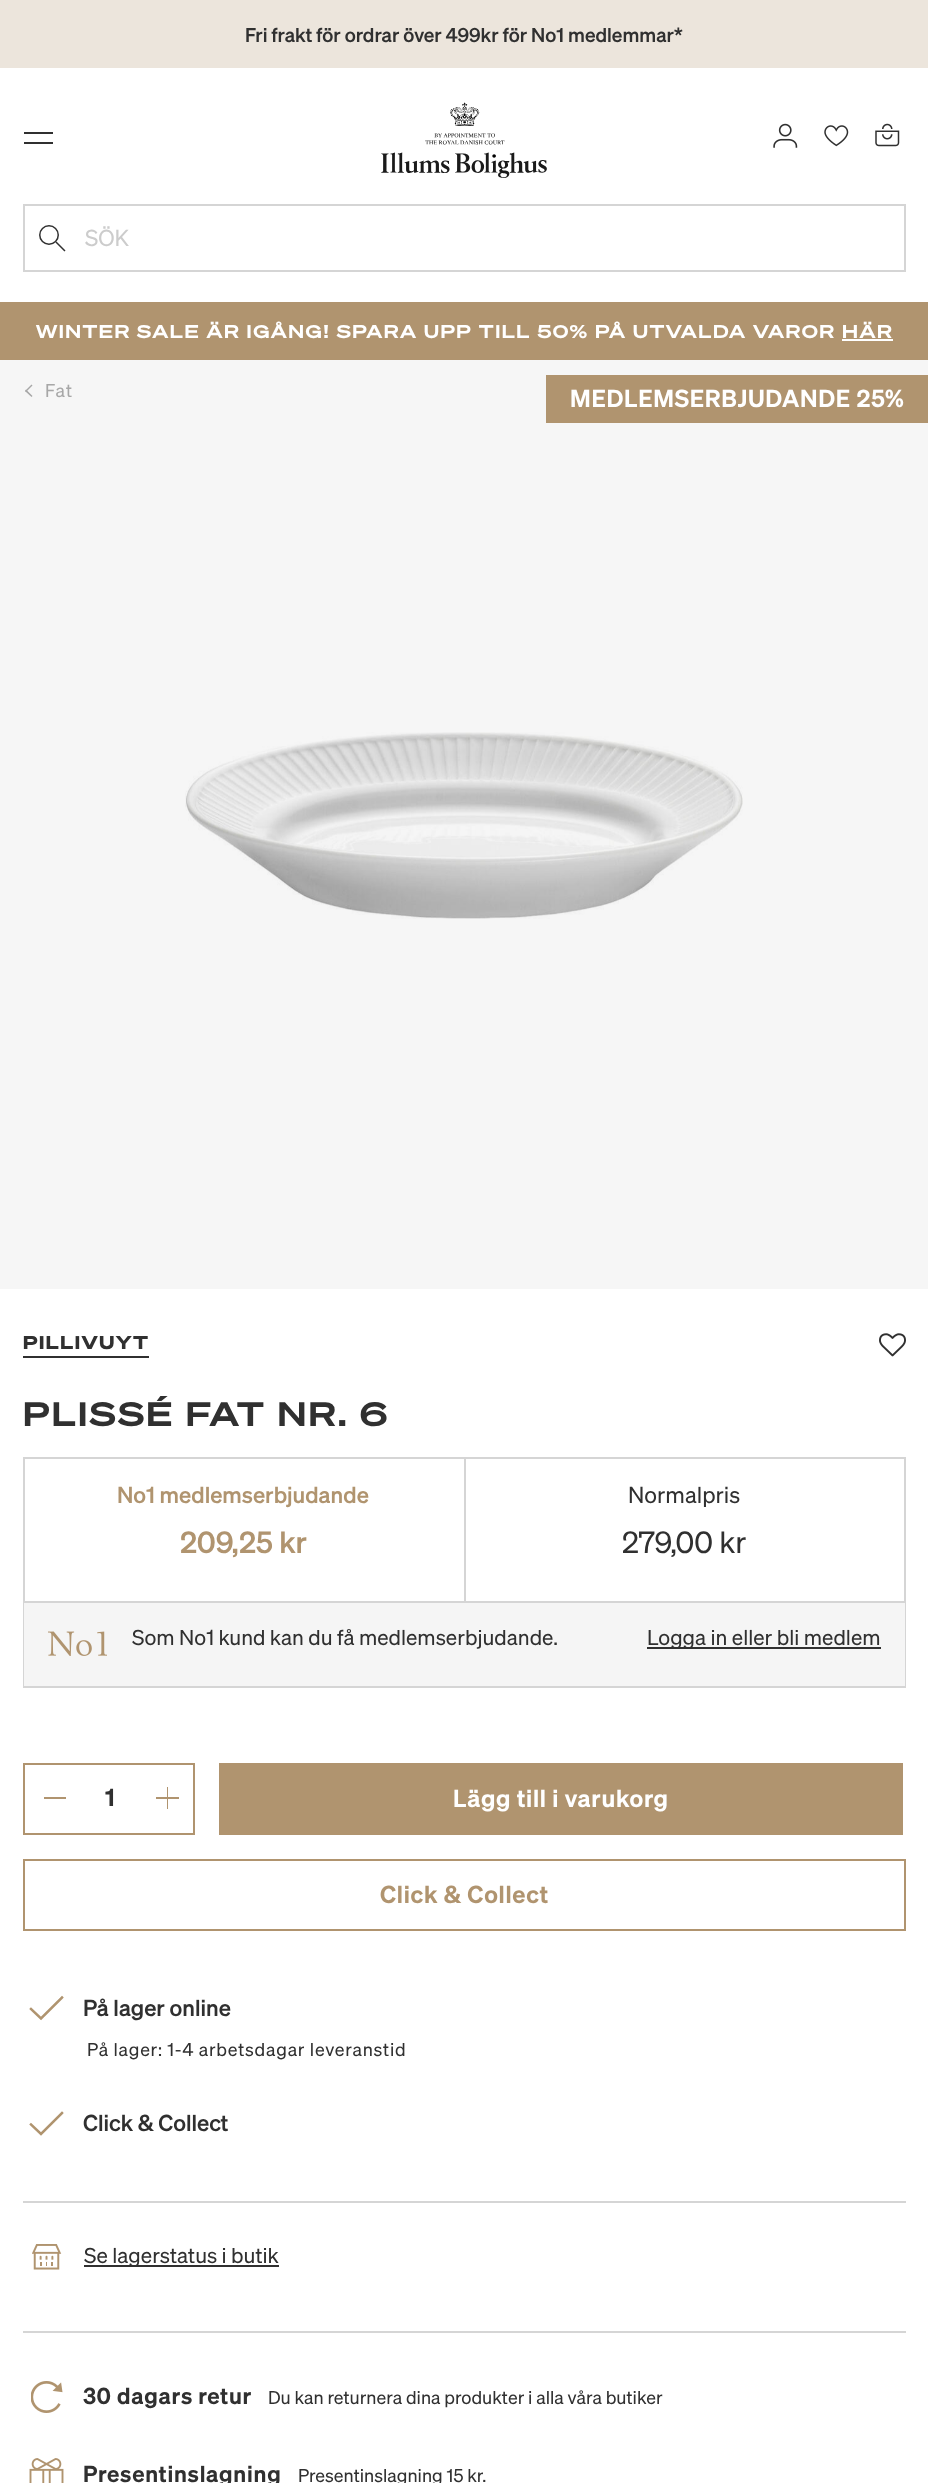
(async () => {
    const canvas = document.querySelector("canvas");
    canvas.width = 928;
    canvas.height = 2483;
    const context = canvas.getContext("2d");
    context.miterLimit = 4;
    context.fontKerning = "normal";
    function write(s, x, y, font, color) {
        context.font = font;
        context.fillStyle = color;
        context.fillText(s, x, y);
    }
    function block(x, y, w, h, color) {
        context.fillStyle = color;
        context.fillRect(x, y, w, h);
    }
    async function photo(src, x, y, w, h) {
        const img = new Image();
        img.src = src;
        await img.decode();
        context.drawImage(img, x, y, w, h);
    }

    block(0, 0, 928, 2483, "rgb(255, 255, 255)");
    block(0, 360, 928, 929, "rgb(246, 246, 246)");
    block(0, 0, 928, 68, "rgb(236, 229, 220)");
    write("Fri frakt för ordrar över 499kr för No1 medlemmar*", 245, 42, "500 19.5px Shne", "rgb(48, 48, 48)");
    await photo("media/1.png", 381, 102, 166, 76);
    block(24, 132, 29, 2, "rgb(48, 48, 48)");
    block(24, 142, 29, 2, "rgb(48, 48, 48)");
    await photo("media/2.png", 773, 123, 25, 25);
    await photo("media/3.png", 824, 125, 25, 22);
    await photo("media/4.png", 875, 123, 25, 24);
    context.strokeStyle = "rgb(213, 213, 213)";
    context.lineWidth = 2;
    context.strokeRect(24, 205, 881, 66);
    context.beginPath();
    context.arc(49, 235, 9.25, 0, Math.PI * 2);
    context.strokeStyle = "rgb(48, 48, 48)";
    context.lineWidth = 1.5;
    context.stroke();
    context.beginPath();
    context.moveTo(56, 242);
    context.lineTo(65, 251);
    context.stroke();
    write("SÖK", 85, 246, "22.5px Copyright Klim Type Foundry", "rgb(204, 204, 204)");
    block(0, 302, 928, 58, "rgb(176, 148, 111)");
    context.letterSpacing = "1.5px";
    write("WINTER SALE ÄR IGÅNG! SPARA UPP TILL 50% PÅ UTVALDA VAROR HÄR", 36, 338, "bold 18px Copyright Klim Type Foundry", "rgb(255, 255, 255)");
    block(842, 339, 51, 2, "rgb(255, 255, 255)");
    context.fillStyle = "rgb(167, 167, 167)";
    context.beginPath();
    context.moveTo(31.5, 397);
    context.lineTo(25, 391);
    context.lineTo(26, 389.5);
    context.lineTo(32.5, 396);
    context.closePath();
    context.fill();
    context.beginPath();
    context.moveTo(26, 392);
    context.lineTo(25, 391);
    context.lineTo(31.5, 384.5);
    context.lineTo(32.5, 385.5);
    context.closePath();
    context.fill();
    context.letterSpacing = "1px";
    write("Fat", 45, 397, "18px Copyright Klim Type Foundry", "rgb(167, 167, 167)");
    block(546, 375, 382, 48, "rgb(176, 148, 111)");
    context.letterSpacing = "0.75px";
    write("MEDLEMSERBJUDANDE 25%", 570, 407, "600 24px Shne", "rgb(255, 255, 255)");
    await photo("media/5.png", 185, 732, 558, 187);
    context.letterSpacing = "1.5px";
    write("PILLIVUYT", 23, 1349, "800 18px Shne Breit", "rgb(48, 48, 48)");
    block(23, 1356, 126, 2, "rgb(48, 48, 48)");
    await photo("media/6.png", 879, 1333, 27, 24);
    context.letterSpacing = "2.25px";
    write("PLISSÉ FAT NR. 6", 23, 1426, "bold 33px Copyright Klim Type Foundry", "rgb(48, 48, 48)");
    context.strokeStyle = "rgb(213, 213, 213)";
    context.lineWidth = 2;
    context.strokeRect(24, 1458, 881, 229);
    block(464, 1458, 2, 143, "rgb(213, 213, 213)");
    context.letterSpacing = "0px";
    write("No1 medlemserbjudande", 117, 1503, "500 22.5px Shne", "rgb(176, 148, 111)");
    write("209,25 kr", 180, 1553, "500 30px Shne", "rgb(176, 148, 111)");
    write("Normalpris", 628, 1503, "22.5px Copyright Klim Type Foundry", "rgb(48, 48, 48)");
    write("279,00 kr", 622, 1553, "30px Copyright Klim Type Foundry", "rgb(48, 48, 48)");
    block(24, 1603, 881, 83, "rgb(245, 245, 245)");
    block(24, 1601, 881, 2, "rgb(213, 213, 213)");
    await photo("media/7.png", 48, 1631, 59, 25);
    write("Som No1 kund kan du få medlemserbjudande.", 132, 1645, "21px Copyright Klim Type Foundry", "rgb(48, 48, 48)");
    block(647, 1647, 234, 2, "rgb(48, 48, 48)");
    write("Logga in eller bli medlem", 647, 1645, "21px Copyright Klim Type Foundry", "rgb(48, 48, 48)");
    context.strokeStyle = "rgb(176, 148, 111)";
    context.strokeRect(24, 1764, 170, 70);
    block(44, 1797, 22, 2, "rgb(176, 148, 111)");
    write("1", 105, 1806, "600 24px Shne", "rgb(48, 48, 48)");
    block(156, 1797, 23, 2, "rgb(176, 148, 111)");
    block(167, 1787, 1, 22, "rgb(176, 148, 111)");
    block(219, 1763, 684, 72, "rgb(176, 148, 111)");
    context.letterSpacing = "0.75px";
    write("Lägg till i varukorg", 453, 1807, "600 24px Shne", "rgb(255, 255, 255)");
    context.strokeRect(24, 1860, 881, 70);
    write("Click & Collect", 380, 1903, "600 24px Shne", "rgb(176, 148, 111)");
    context.beginPath();
    context.moveTo(62, 1997.5);
    context.lineTo(41, 2018.5);
    context.lineTo(31, 2009);
    context.lineWidth = 2.5;
    context.lineCap = "square";
    context.stroke();
    context.letterSpacing = "0px";
    write("På lager online", 83, 2016, "500 22.5px Shne", "rgb(48, 48, 48)");
    context.letterSpacing = "0.75px";
    write("På lager: 1-4 arbetsdagar leveranstid", 87, 2056, "18px Copyright Klim Type Foundry", "rgb(48, 48, 48)");
    context.beginPath();
    context.moveTo(62, 2113);
    context.lineTo(41, 2134);
    context.lineTo(31, 2124.5);
    context.stroke();
    context.letterSpacing = "0px";
    write("Click & Collect", 83, 2131, "500 22.5px Shne", "rgb(48, 48, 48)");
    block(23, 2201, 883, 2, "rgb(213, 213, 213)");
    await photo("media/8.png", 32, 2244, 30, 26);
    block(84, 2265, 195, 2, "rgb(48, 48, 48)");
    write("Se lagerstatus i butik", 84, 2263, "21px Copyright Klim Type Foundry", "rgb(48, 48, 48)");
    block(23, 2331, 883, 2, "rgb(213, 213, 213)");
    await photo("media/9.png", 31, 2381, 32, 32);
    context.letterSpacing = "0.75px";
    write("30 dagars retur", 83, 2404, "600 22.5px Shne", "rgb(48, 48, 48)");
    context.letterSpacing = "0px";
    write("Du kan returnera dina produkter i alla våra butiker", 268, 2404, "18px Copyright Klim Type Foundry", "rgb(48, 48, 48)");
    await photo("media/10.png", 29, 2458, 35, 25);
    context.letterSpacing = "0.75px";
    write("Presentinslagning", 83, 2482, "600 22.5px Shne", "rgb(48, 48, 48)");
    context.letterSpacing = "0px";
    write("Presentinslagning 15 kr.", 298, 2482, "18px Copyright Klim Type Foundry", "rgb(48, 48, 48)");
})();
